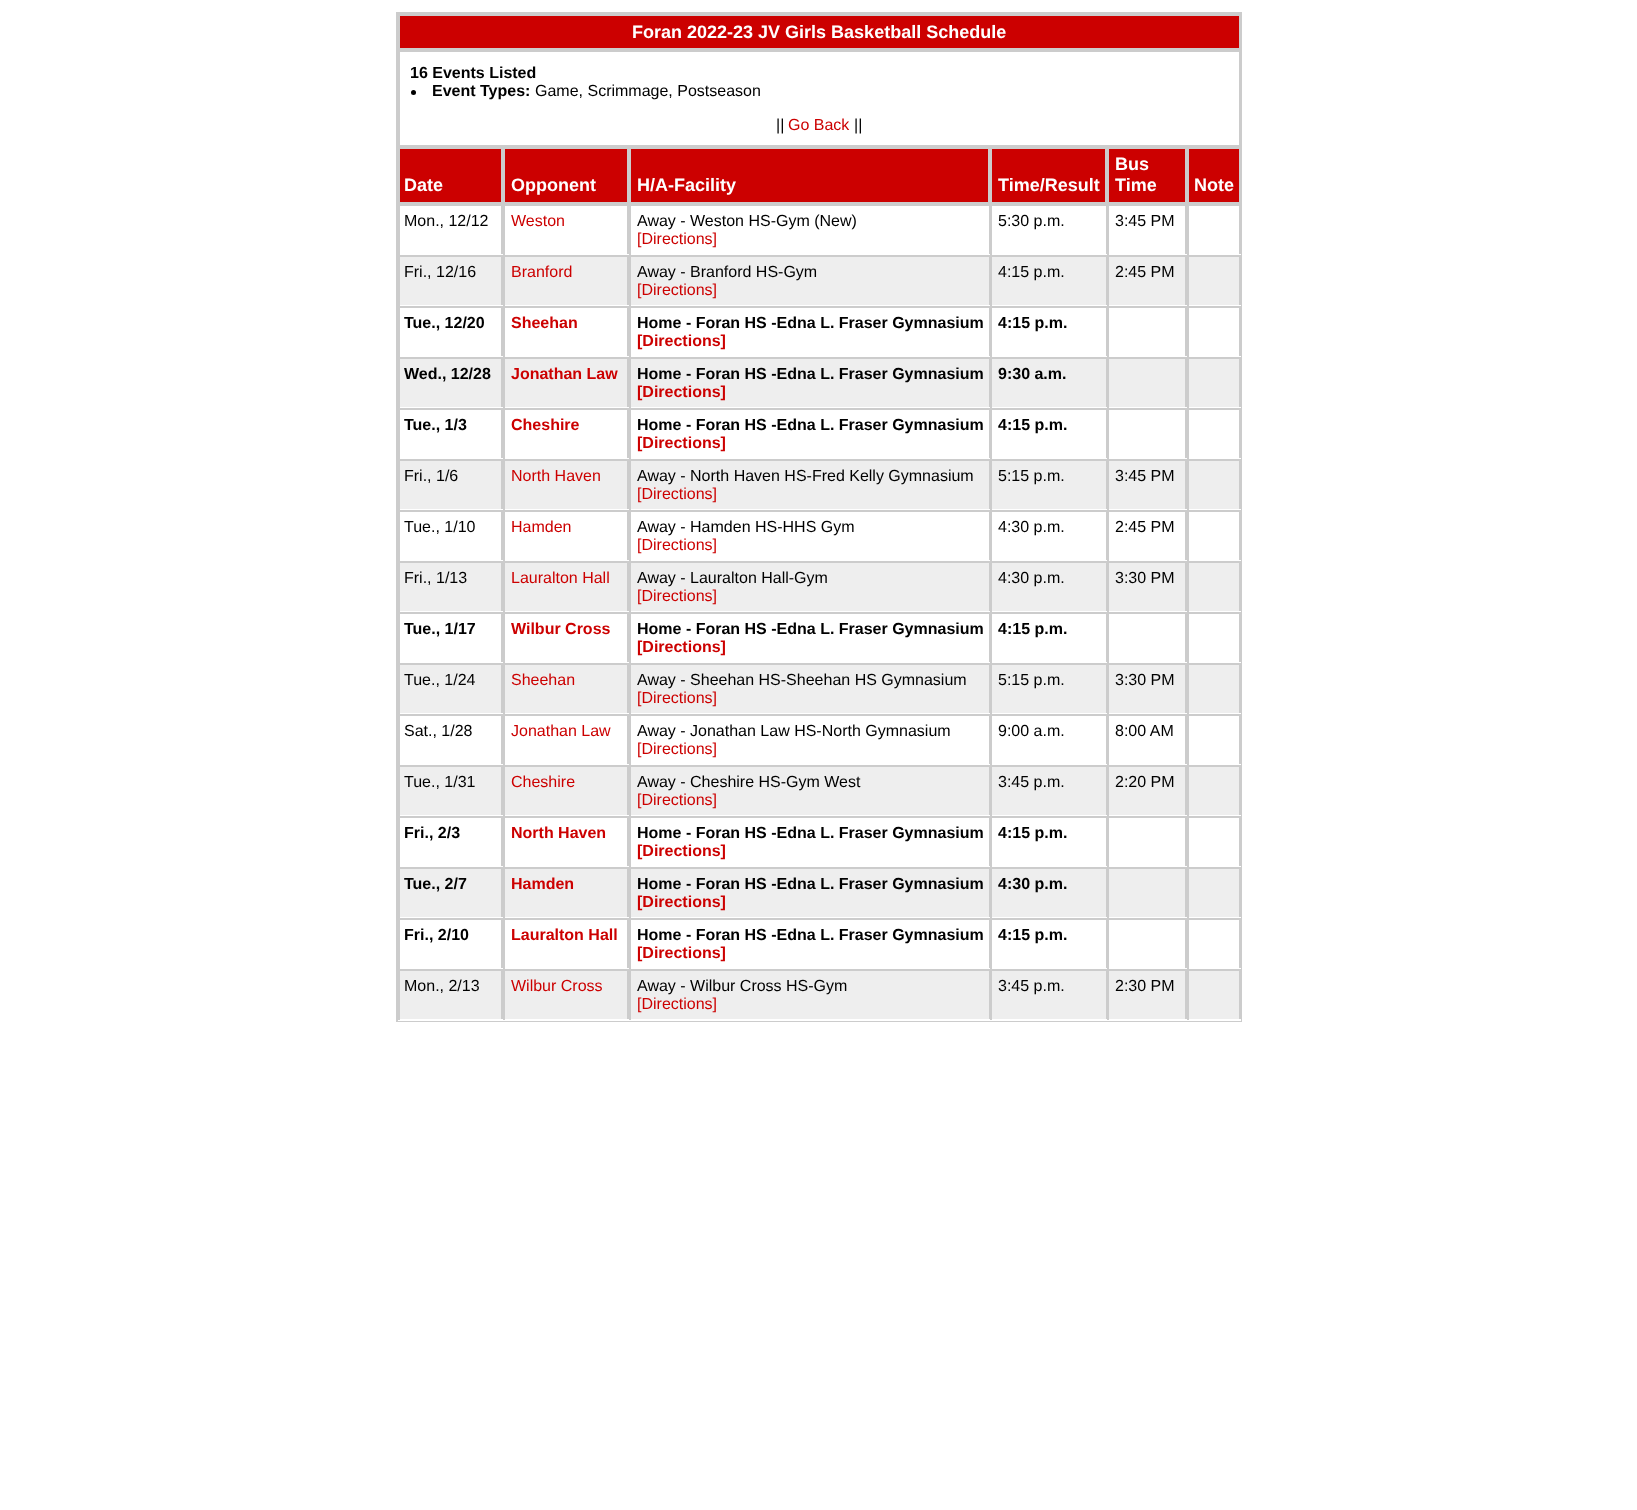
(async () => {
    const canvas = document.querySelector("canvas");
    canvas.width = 1637;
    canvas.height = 1510;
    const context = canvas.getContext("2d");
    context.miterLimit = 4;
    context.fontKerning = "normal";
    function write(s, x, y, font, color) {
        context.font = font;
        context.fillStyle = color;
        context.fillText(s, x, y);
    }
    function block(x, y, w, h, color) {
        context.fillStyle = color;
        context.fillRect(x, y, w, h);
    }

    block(0, 0, 1637, 1510, "rgb(255, 255, 255)");
    block(396, 12, 846, 1010, "rgb(204, 204, 204)");
    block(400, 16, 839, 32, "rgb(204, 0, 0)");
    write("Foran 2022-23 JV Girls Basketball Schedule", 632, 38, "bold 18px Liberation Sans", "rgb(255, 255, 255)");
    block(400, 52, 839, 93, "rgb(255, 255, 255)");
    write("16 Events Listed", 410, 78, "bold 16px Liberation Sans", "rgb(0, 0, 0)");
    context.beginPath();
    context.arc(413.5, 92.5, 2.5, 0, Math.PI * 2);
    context.fill();
    write("Event Types:", 432, 96, "bold 16px Liberation Sans", "rgb(0, 0, 0)");
    write("Game, Scrimmage, Postseason", 535, 96, "16px Liberation Sans", "rgb(0, 0, 0)");
    write("||", 776, 130, "16px Liberation Sans", "rgb(0, 0, 0)");
    write("Go Back", 788, 130, "16px Liberation Sans", "rgb(204, 0, 0)");
    write("||", 854, 130, "16px Liberation Sans", "rgb(0, 0, 0)");
    block(400, 149, 101, 53, "rgb(204, 0, 0)");
    write("Date", 404, 191, "bold 18px Liberation Sans", "rgb(255, 255, 255)");
    block(505, 149, 122, 53, "rgb(204, 0, 0)");
    write("Opponent", 511, 191, "bold 18px Liberation Sans", "rgb(255, 255, 255)");
    block(631, 149, 357, 53, "rgb(204, 0, 0)");
    write("H/A-Facility", 637, 191, "bold 18px Liberation Sans", "rgb(255, 255, 255)");
    block(992, 149, 113, 53, "rgb(204, 0, 0)");
    write("Time/Result", 998, 191, "bold 18px Liberation Sans", "rgb(255, 255, 255)");
    block(1109, 149, 76, 53, "rgb(204, 0, 0)");
    write("Bus", 1115, 170, "bold 18px Liberation Sans", "rgb(255, 255, 255)");
    write("Time", 1115, 191, "bold 18px Liberation Sans", "rgb(255, 255, 255)");
    block(1189, 149, 50, 53, "rgb(204, 0, 0)");
    write("Note", 1194, 191, "bold 18px Liberation Sans", "rgb(255, 255, 255)");
    block(400, 206, 839, 48, "rgb(255, 255, 255)");
    block(501, 204, 2, 51, "rgb(204, 204, 204)");
    block(398, 254, 105, 1, "rgb(255, 255, 255)");
    block(398, 254, 2, 1, "rgb(204, 204, 204)");
    write("Mon., 12/12", 404, 226, "16px Liberation Sans", "rgb(0, 0, 0)");
    block(627, 204, 2, 51, "rgb(204, 204, 204)");
    block(503, 254, 126, 1, "rgb(255, 255, 255)");
    block(503, 204, 2, 51, "rgb(204, 204, 204)");
    write("Weston", 511, 226, "16px Liberation Sans", "rgb(204, 0, 0)");
    block(989, 204, 1, 51, "rgb(204, 204, 204)");
    block(629, 254, 361, 1, "rgb(255, 255, 255)");
    block(629, 204, 2, 51, "rgb(204, 204, 204)");
    write("Away - Weston HS-Gym (New)", 637, 226, "16px Liberation Sans", "rgb(0, 0, 0)");
    write("[Directions]", 637, 244, "16px Liberation Sans", "rgb(204, 0, 0)");
    block(1106, 204, 1, 51, "rgb(204, 204, 204)");
    block(990, 254, 117, 1, "rgb(255, 255, 255)");
    block(990, 204, 2, 51, "rgb(204, 204, 204)");
    write("5:30 p.m.", 998, 226, "16px Liberation Sans", "rgb(0, 0, 0)");
    block(1185, 204, 2, 51, "rgb(204, 204, 204)");
    block(1107, 254, 134, 1, "rgb(255, 255, 255)");
    block(1107, 204, 2, 51, "rgb(204, 204, 204)");
    write("3:45 PM", 1115, 226, "16px Liberation Sans", "rgb(0, 0, 0)");
    block(1187, 204, 2, 51, "rgb(204, 204, 204)");
    block(400, 257, 839, 48, "rgb(238, 238, 238)");
    block(501, 255, 2, 51, "rgb(204, 204, 204)");
    block(398, 305, 105, 1, "rgb(255, 255, 255)");
    block(398, 305, 2, 1, "rgb(204, 204, 204)");
    write("Fri., 12/16", 404, 277, "16px Liberation Sans", "rgb(0, 0, 0)");
    block(627, 255, 2, 51, "rgb(204, 204, 204)");
    block(503, 305, 126, 1, "rgb(255, 255, 255)");
    block(503, 255, 2, 51, "rgb(204, 204, 204)");
    write("Branford", 511, 277, "16px Liberation Sans", "rgb(204, 0, 0)");
    block(989, 255, 1, 51, "rgb(204, 204, 204)");
    block(629, 305, 361, 1, "rgb(255, 255, 255)");
    block(629, 255, 2, 51, "rgb(204, 204, 204)");
    write("Away - Branford HS-Gym", 637, 277, "16px Liberation Sans", "rgb(0, 0, 0)");
    write("[Directions]", 637, 295, "16px Liberation Sans", "rgb(204, 0, 0)");
    block(1106, 255, 1, 51, "rgb(204, 204, 204)");
    block(990, 305, 117, 1, "rgb(255, 255, 255)");
    block(990, 255, 2, 51, "rgb(204, 204, 204)");
    write("4:15 p.m.", 998, 277, "16px Liberation Sans", "rgb(0, 0, 0)");
    block(1185, 255, 2, 51, "rgb(204, 204, 204)");
    block(1107, 305, 134, 1, "rgb(255, 255, 255)");
    block(1107, 255, 2, 51, "rgb(204, 204, 204)");
    write("2:45 PM", 1115, 277, "16px Liberation Sans", "rgb(0, 0, 0)");
    block(1187, 255, 2, 51, "rgb(204, 204, 204)");
    block(400, 308, 839, 48, "rgb(255, 255, 255)");
    block(1185, 306, 2, 51, "rgb(204, 204, 204)");
    block(1107, 356, 134, 1, "rgb(255, 255, 255)");
    block(1107, 306, 2, 51, "rgb(204, 204, 204)");
    block(501, 306, 2, 51, "rgb(204, 204, 204)");
    block(398, 356, 105, 1, "rgb(255, 255, 255)");
    block(398, 356, 2, 1, "rgb(204, 204, 204)");
    write("Tue., 12/20", 404, 328, "bold 16px Liberation Sans", "rgb(0, 0, 0)");
    block(627, 306, 2, 51, "rgb(204, 204, 204)");
    block(503, 356, 126, 1, "rgb(255, 255, 255)");
    block(503, 306, 2, 51, "rgb(204, 204, 204)");
    write("Sheehan", 511, 328, "bold 16px Liberation Sans", "rgb(204, 0, 0)");
    block(989, 306, 1, 51, "rgb(204, 204, 204)");
    block(629, 356, 361, 1, "rgb(255, 255, 255)");
    block(629, 306, 2, 51, "rgb(204, 204, 204)");
    write("Home - Foran HS -Edna L. Fraser Gymnasium", 637, 328, "bold 16px Liberation Sans", "rgb(0, 0, 0)");
    write("[Directions]", 637, 346, "bold 16px Liberation Sans", "rgb(204, 0, 0)");
    block(1106, 306, 1, 51, "rgb(204, 204, 204)");
    block(990, 356, 117, 1, "rgb(255, 255, 255)");
    block(990, 306, 2, 51, "rgb(204, 204, 204)");
    write("4:15 p.m.", 998, 328, "bold 16px Liberation Sans", "rgb(0, 0, 0)");
    block(1187, 306, 2, 51, "rgb(204, 204, 204)");
    block(400, 359, 839, 48, "rgb(238, 238, 238)");
    block(1185, 357, 2, 51, "rgb(204, 204, 204)");
    block(1107, 407, 134, 1, "rgb(255, 255, 255)");
    block(1107, 357, 2, 51, "rgb(204, 204, 204)");
    block(501, 357, 2, 51, "rgb(204, 204, 204)");
    block(398, 407, 105, 1, "rgb(255, 255, 255)");
    block(398, 407, 2, 1, "rgb(204, 204, 204)");
    write("Wed., 12/28", 404, 379, "bold 16px Liberation Sans", "rgb(0, 0, 0)");
    block(627, 357, 2, 51, "rgb(204, 204, 204)");
    block(503, 407, 126, 1, "rgb(255, 255, 255)");
    block(503, 357, 2, 51, "rgb(204, 204, 204)");
    write("Jonathan Law", 511, 379, "bold 16px Liberation Sans", "rgb(204, 0, 0)");
    block(989, 357, 1, 51, "rgb(204, 204, 204)");
    block(629, 407, 361, 1, "rgb(255, 255, 255)");
    block(629, 357, 2, 51, "rgb(204, 204, 204)");
    write("Home - Foran HS -Edna L. Fraser Gymnasium", 637, 379, "bold 16px Liberation Sans", "rgb(0, 0, 0)");
    write("[Directions]", 637, 397, "bold 16px Liberation Sans", "rgb(204, 0, 0)");
    block(1106, 357, 1, 51, "rgb(204, 204, 204)");
    block(990, 407, 117, 1, "rgb(255, 255, 255)");
    block(990, 357, 2, 51, "rgb(204, 204, 204)");
    write("9:30 a.m.", 998, 379, "bold 16px Liberation Sans", "rgb(0, 0, 0)");
    block(1187, 357, 2, 51, "rgb(204, 204, 204)");
    block(400, 410, 839, 48, "rgb(255, 255, 255)");
    block(1185, 408, 2, 51, "rgb(204, 204, 204)");
    block(1107, 458, 134, 1, "rgb(255, 255, 255)");
    block(1107, 408, 2, 51, "rgb(204, 204, 204)");
    block(501, 408, 2, 51, "rgb(204, 204, 204)");
    block(398, 458, 105, 1, "rgb(255, 255, 255)");
    block(398, 458, 2, 1, "rgb(204, 204, 204)");
    write("Tue., 1/3", 404, 430, "bold 16px Liberation Sans", "rgb(0, 0, 0)");
    block(627, 408, 2, 51, "rgb(204, 204, 204)");
    block(503, 458, 126, 1, "rgb(255, 255, 255)");
    block(503, 408, 2, 51, "rgb(204, 204, 204)");
    write("Cheshire", 511, 430, "bold 16px Liberation Sans", "rgb(204, 0, 0)");
    block(989, 408, 1, 51, "rgb(204, 204, 204)");
    block(629, 458, 361, 1, "rgb(255, 255, 255)");
    block(629, 408, 2, 51, "rgb(204, 204, 204)");
    write("Home - Foran HS -Edna L. Fraser Gymnasium", 637, 430, "bold 16px Liberation Sans", "rgb(0, 0, 0)");
    write("[Directions]", 637, 448, "bold 16px Liberation Sans", "rgb(204, 0, 0)");
    block(1106, 408, 1, 51, "rgb(204, 204, 204)");
    block(990, 458, 117, 1, "rgb(255, 255, 255)");
    block(990, 408, 2, 51, "rgb(204, 204, 204)");
    write("4:15 p.m.", 998, 430, "bold 16px Liberation Sans", "rgb(0, 0, 0)");
    block(1187, 408, 2, 51, "rgb(204, 204, 204)");
    block(400, 461, 839, 48, "rgb(238, 238, 238)");
    block(501, 459, 2, 51, "rgb(204, 204, 204)");
    block(398, 509, 105, 1, "rgb(255, 255, 255)");
    block(398, 509, 2, 1, "rgb(204, 204, 204)");
    write("Fri., 1/6", 404, 481, "16px Liberation Sans", "rgb(0, 0, 0)");
    block(627, 459, 2, 51, "rgb(204, 204, 204)");
    block(503, 509, 126, 1, "rgb(255, 255, 255)");
    block(503, 459, 2, 51, "rgb(204, 204, 204)");
    write("North Haven", 511, 481, "16px Liberation Sans", "rgb(204, 0, 0)");
    block(989, 459, 1, 51, "rgb(204, 204, 204)");
    block(629, 509, 361, 1, "rgb(255, 255, 255)");
    block(629, 459, 2, 51, "rgb(204, 204, 204)");
    write("Away - North Haven HS-Fred Kelly Gymnasium", 637, 481, "16px Liberation Sans", "rgb(0, 0, 0)");
    write("[Directions]", 637, 499, "16px Liberation Sans", "rgb(204, 0, 0)");
    block(1106, 459, 1, 51, "rgb(204, 204, 204)");
    block(990, 509, 117, 1, "rgb(255, 255, 255)");
    block(990, 459, 2, 51, "rgb(204, 204, 204)");
    write("5:15 p.m.", 998, 481, "16px Liberation Sans", "rgb(0, 0, 0)");
    block(1185, 459, 2, 51, "rgb(204, 204, 204)");
    block(1107, 509, 134, 1, "rgb(255, 255, 255)");
    block(1107, 459, 2, 51, "rgb(204, 204, 204)");
    write("3:45 PM", 1115, 481, "16px Liberation Sans", "rgb(0, 0, 0)");
    block(1187, 459, 2, 51, "rgb(204, 204, 204)");
    block(400, 512, 839, 48, "rgb(255, 255, 255)");
    block(501, 510, 2, 51, "rgb(204, 204, 204)");
    block(398, 560, 105, 1, "rgb(255, 255, 255)");
    block(398, 560, 2, 1, "rgb(204, 204, 204)");
    write("Tue., 1/10", 404, 532, "16px Liberation Sans", "rgb(0, 0, 0)");
    block(627, 510, 2, 51, "rgb(204, 204, 204)");
    block(503, 560, 126, 1, "rgb(255, 255, 255)");
    block(503, 510, 2, 51, "rgb(204, 204, 204)");
    write("Hamden", 511, 532, "16px Liberation Sans", "rgb(204, 0, 0)");
    block(989, 510, 1, 51, "rgb(204, 204, 204)");
    block(629, 560, 361, 1, "rgb(255, 255, 255)");
    block(629, 510, 2, 51, "rgb(204, 204, 204)");
    write("Away - Hamden HS-HHS Gym", 637, 532, "16px Liberation Sans", "rgb(0, 0, 0)");
    write("[Directions]", 637, 550, "16px Liberation Sans", "rgb(204, 0, 0)");
    block(1106, 510, 1, 51, "rgb(204, 204, 204)");
    block(990, 560, 117, 1, "rgb(255, 255, 255)");
    block(990, 510, 2, 51, "rgb(204, 204, 204)");
    write("4:30 p.m.", 998, 532, "16px Liberation Sans", "rgb(0, 0, 0)");
    block(1185, 510, 2, 51, "rgb(204, 204, 204)");
    block(1107, 560, 134, 1, "rgb(255, 255, 255)");
    block(1107, 510, 2, 51, "rgb(204, 204, 204)");
    write("2:45 PM", 1115, 532, "16px Liberation Sans", "rgb(0, 0, 0)");
    block(1187, 510, 2, 51, "rgb(204, 204, 204)");
    block(400, 563, 839, 48, "rgb(238, 238, 238)");
    block(501, 561, 2, 51, "rgb(204, 204, 204)");
    block(398, 611, 105, 1, "rgb(255, 255, 255)");
    block(398, 611, 2, 1, "rgb(204, 204, 204)");
    write("Fri., 1/13", 404, 583, "16px Liberation Sans", "rgb(0, 0, 0)");
    block(627, 561, 2, 51, "rgb(204, 204, 204)");
    block(503, 611, 126, 1, "rgb(255, 255, 255)");
    block(503, 561, 2, 51, "rgb(204, 204, 204)");
    write("Lauralton Hall", 511, 583, "16px Liberation Sans", "rgb(204, 0, 0)");
    block(989, 561, 1, 51, "rgb(204, 204, 204)");
    block(629, 611, 361, 1, "rgb(255, 255, 255)");
    block(629, 561, 2, 51, "rgb(204, 204, 204)");
    write("Away - Lauralton Hall-Gym", 637, 583, "16px Liberation Sans", "rgb(0, 0, 0)");
    write("[Directions]", 637, 601, "16px Liberation Sans", "rgb(204, 0, 0)");
    block(1106, 561, 1, 51, "rgb(204, 204, 204)");
    block(990, 611, 117, 1, "rgb(255, 255, 255)");
    block(990, 561, 2, 51, "rgb(204, 204, 204)");
    write("4:30 p.m.", 998, 583, "16px Liberation Sans", "rgb(0, 0, 0)");
    block(1185, 561, 2, 51, "rgb(204, 204, 204)");
    block(1107, 611, 134, 1, "rgb(255, 255, 255)");
    block(1107, 561, 2, 51, "rgb(204, 204, 204)");
    write("3:30 PM", 1115, 583, "16px Liberation Sans", "rgb(0, 0, 0)");
    block(1187, 561, 2, 51, "rgb(204, 204, 204)");
    block(400, 614, 839, 48, "rgb(255, 255, 255)");
    block(1185, 612, 2, 51, "rgb(204, 204, 204)");
    block(1107, 662, 134, 1, "rgb(255, 255, 255)");
    block(1107, 612, 2, 51, "rgb(204, 204, 204)");
    block(501, 612, 2, 51, "rgb(204, 204, 204)");
    block(398, 662, 105, 1, "rgb(255, 255, 255)");
    block(398, 662, 2, 1, "rgb(204, 204, 204)");
    write("Tue., 1/17", 404, 634, "bold 16px Liberation Sans", "rgb(0, 0, 0)");
    block(627, 612, 2, 51, "rgb(204, 204, 204)");
    block(503, 662, 126, 1, "rgb(255, 255, 255)");
    block(503, 612, 2, 51, "rgb(204, 204, 204)");
    write("Wilbur Cross", 511, 634, "bold 16px Liberation Sans", "rgb(204, 0, 0)");
    block(989, 612, 1, 51, "rgb(204, 204, 204)");
    block(629, 662, 361, 1, "rgb(255, 255, 255)");
    block(629, 612, 2, 51, "rgb(204, 204, 204)");
    write("Home - Foran HS -Edna L. Fraser Gymnasium", 637, 634, "bold 16px Liberation Sans", "rgb(0, 0, 0)");
    write("[Directions]", 637, 652, "bold 16px Liberation Sans", "rgb(204, 0, 0)");
    block(1106, 612, 1, 51, "rgb(204, 204, 204)");
    block(990, 662, 117, 1, "rgb(255, 255, 255)");
    block(990, 612, 2, 51, "rgb(204, 204, 204)");
    write("4:15 p.m.", 998, 634, "bold 16px Liberation Sans", "rgb(0, 0, 0)");
    block(1187, 612, 2, 51, "rgb(204, 204, 204)");
    block(400, 665, 839, 48, "rgb(238, 238, 238)");
    block(501, 663, 2, 51, "rgb(204, 204, 204)");
    block(398, 713, 105, 1, "rgb(255, 255, 255)");
    block(398, 713, 2, 1, "rgb(204, 204, 204)");
    write("Tue., 1/24", 404, 685, "16px Liberation Sans", "rgb(0, 0, 0)");
    block(627, 663, 2, 51, "rgb(204, 204, 204)");
    block(503, 713, 126, 1, "rgb(255, 255, 255)");
    block(503, 663, 2, 51, "rgb(204, 204, 204)");
    write("Sheehan", 511, 685, "16px Liberation Sans", "rgb(204, 0, 0)");
    block(989, 663, 1, 51, "rgb(204, 204, 204)");
    block(629, 713, 361, 1, "rgb(255, 255, 255)");
    block(629, 663, 2, 51, "rgb(204, 204, 204)");
    write("Away - Sheehan HS-Sheehan HS Gymnasium", 637, 685, "16px Liberation Sans", "rgb(0, 0, 0)");
    write("[Directions]", 637, 703, "16px Liberation Sans", "rgb(204, 0, 0)");
    block(1106, 663, 1, 51, "rgb(204, 204, 204)");
    block(990, 713, 117, 1, "rgb(255, 255, 255)");
    block(990, 663, 2, 51, "rgb(204, 204, 204)");
    write("5:15 p.m.", 998, 685, "16px Liberation Sans", "rgb(0, 0, 0)");
    block(1185, 663, 2, 51, "rgb(204, 204, 204)");
    block(1107, 713, 134, 1, "rgb(255, 255, 255)");
    block(1107, 663, 2, 51, "rgb(204, 204, 204)");
    write("3:30 PM", 1115, 685, "16px Liberation Sans", "rgb(0, 0, 0)");
    block(1187, 663, 2, 51, "rgb(204, 204, 204)");
    block(400, 716, 839, 48, "rgb(255, 255, 255)");
    block(501, 714, 2, 51, "rgb(204, 204, 204)");
    block(398, 764, 105, 1, "rgb(255, 255, 255)");
    block(398, 764, 2, 1, "rgb(204, 204, 204)");
    write("Sat., 1/28", 404, 736, "16px Liberation Sans", "rgb(0, 0, 0)");
    block(627, 714, 2, 51, "rgb(204, 204, 204)");
    block(503, 764, 126, 1, "rgb(255, 255, 255)");
    block(503, 714, 2, 51, "rgb(204, 204, 204)");
    write("Jonathan Law", 511, 736, "16px Liberation Sans", "rgb(204, 0, 0)");
    block(989, 714, 1, 51, "rgb(204, 204, 204)");
    block(629, 764, 361, 1, "rgb(255, 255, 255)");
    block(629, 714, 2, 51, "rgb(204, 204, 204)");
    write("Away - Jonathan Law HS-North Gymnasium", 637, 736, "16px Liberation Sans", "rgb(0, 0, 0)");
    write("[Directions]", 637, 754, "16px Liberation Sans", "rgb(204, 0, 0)");
    block(1106, 714, 1, 51, "rgb(204, 204, 204)");
    block(990, 764, 117, 1, "rgb(255, 255, 255)");
    block(990, 714, 2, 51, "rgb(204, 204, 204)");
    write("9:00 a.m.", 998, 736, "16px Liberation Sans", "rgb(0, 0, 0)");
    block(1185, 714, 2, 51, "rgb(204, 204, 204)");
    block(1107, 764, 134, 1, "rgb(255, 255, 255)");
    block(1107, 714, 2, 51, "rgb(204, 204, 204)");
    write("8:00 AM", 1115, 736, "16px Liberation Sans", "rgb(0, 0, 0)");
    block(1187, 714, 2, 51, "rgb(204, 204, 204)");
    block(400, 767, 839, 48, "rgb(238, 238, 238)");
    block(501, 765, 2, 51, "rgb(204, 204, 204)");
    block(398, 815, 105, 1, "rgb(255, 255, 255)");
    block(398, 815, 2, 1, "rgb(204, 204, 204)");
    write("Tue., 1/31", 404, 787, "16px Liberation Sans", "rgb(0, 0, 0)");
    block(627, 765, 2, 51, "rgb(204, 204, 204)");
    block(503, 815, 126, 1, "rgb(255, 255, 255)");
    block(503, 765, 2, 51, "rgb(204, 204, 204)");
    write("Cheshire", 511, 787, "16px Liberation Sans", "rgb(204, 0, 0)");
    block(989, 765, 1, 51, "rgb(204, 204, 204)");
    block(629, 815, 361, 1, "rgb(255, 255, 255)");
    block(629, 765, 2, 51, "rgb(204, 204, 204)");
    write("Away - Cheshire HS-Gym West", 637, 787, "16px Liberation Sans", "rgb(0, 0, 0)");
    write("[Directions]", 637, 805, "16px Liberation Sans", "rgb(204, 0, 0)");
    block(1106, 765, 1, 51, "rgb(204, 204, 204)");
    block(990, 815, 117, 1, "rgb(255, 255, 255)");
    block(990, 765, 2, 51, "rgb(204, 204, 204)");
    write("3:45 p.m.", 998, 787, "16px Liberation Sans", "rgb(0, 0, 0)");
    block(1185, 765, 2, 51, "rgb(204, 204, 204)");
    block(1107, 815, 134, 1, "rgb(255, 255, 255)");
    block(1107, 765, 2, 51, "rgb(204, 204, 204)");
    write("2:20 PM", 1115, 787, "16px Liberation Sans", "rgb(0, 0, 0)");
    block(1187, 765, 2, 51, "rgb(204, 204, 204)");
    block(400, 818, 839, 48, "rgb(255, 255, 255)");
    block(1185, 816, 2, 51, "rgb(204, 204, 204)");
    block(1107, 866, 134, 1, "rgb(255, 255, 255)");
    block(1107, 816, 2, 51, "rgb(204, 204, 204)");
    block(501, 816, 2, 51, "rgb(204, 204, 204)");
    block(398, 866, 105, 1, "rgb(255, 255, 255)");
    block(398, 866, 2, 1, "rgb(204, 204, 204)");
    write("Fri., 2/3", 404, 838, "bold 16px Liberation Sans", "rgb(0, 0, 0)");
    block(627, 816, 2, 51, "rgb(204, 204, 204)");
    block(503, 866, 126, 1, "rgb(255, 255, 255)");
    block(503, 816, 2, 51, "rgb(204, 204, 204)");
    write("North Haven", 511, 838, "bold 16px Liberation Sans", "rgb(204, 0, 0)");
    block(989, 816, 1, 51, "rgb(204, 204, 204)");
    block(629, 866, 361, 1, "rgb(255, 255, 255)");
    block(629, 816, 2, 51, "rgb(204, 204, 204)");
    write("Home - Foran HS -Edna L. Fraser Gymnasium", 637, 838, "bold 16px Liberation Sans", "rgb(0, 0, 0)");
    write("[Directions]", 637, 856, "bold 16px Liberation Sans", "rgb(204, 0, 0)");
    block(1106, 816, 1, 51, "rgb(204, 204, 204)");
    block(990, 866, 117, 1, "rgb(255, 255, 255)");
    block(990, 816, 2, 51, "rgb(204, 204, 204)");
    write("4:15 p.m.", 998, 838, "bold 16px Liberation Sans", "rgb(0, 0, 0)");
    block(1187, 816, 2, 51, "rgb(204, 204, 204)");
    block(400, 869, 839, 48, "rgb(238, 238, 238)");
    block(1185, 867, 2, 51, "rgb(204, 204, 204)");
    block(1107, 917, 134, 1, "rgb(255, 255, 255)");
    block(1107, 867, 2, 51, "rgb(204, 204, 204)");
    block(501, 867, 2, 51, "rgb(204, 204, 204)");
    block(398, 917, 105, 1, "rgb(255, 255, 255)");
    block(398, 917, 2, 1, "rgb(204, 204, 204)");
    write("Tue., 2/7", 404, 889, "bold 16px Liberation Sans", "rgb(0, 0, 0)");
    block(627, 867, 2, 51, "rgb(204, 204, 204)");
    block(503, 917, 126, 1, "rgb(255, 255, 255)");
    block(503, 867, 2, 51, "rgb(204, 204, 204)");
    write("Hamden", 511, 889, "bold 16px Liberation Sans", "rgb(204, 0, 0)");
    block(989, 867, 1, 51, "rgb(204, 204, 204)");
    block(629, 917, 361, 1, "rgb(255, 255, 255)");
    block(629, 867, 2, 51, "rgb(204, 204, 204)");
    write("Home - Foran HS -Edna L. Fraser Gymnasium", 637, 889, "bold 16px Liberation Sans", "rgb(0, 0, 0)");
    write("[Directions]", 637, 907, "bold 16px Liberation Sans", "rgb(204, 0, 0)");
    block(1106, 867, 1, 51, "rgb(204, 204, 204)");
    block(990, 917, 117, 1, "rgb(255, 255, 255)");
    block(990, 867, 2, 51, "rgb(204, 204, 204)");
    write("4:30 p.m.", 998, 889, "bold 16px Liberation Sans", "rgb(0, 0, 0)");
    block(1187, 867, 2, 51, "rgb(204, 204, 204)");
    block(400, 920, 839, 48, "rgb(255, 255, 255)");
    block(1185, 918, 2, 51, "rgb(204, 204, 204)");
    block(1107, 968, 134, 1, "rgb(255, 255, 255)");
    block(1107, 918, 2, 51, "rgb(204, 204, 204)");
    block(501, 918, 2, 51, "rgb(204, 204, 204)");
    block(398, 968, 105, 1, "rgb(255, 255, 255)");
    block(398, 968, 2, 1, "rgb(204, 204, 204)");
    write("Fri., 2/10", 404, 940, "bold 16px Liberation Sans", "rgb(0, 0, 0)");
    block(627, 918, 2, 51, "rgb(204, 204, 204)");
    block(503, 968, 126, 1, "rgb(255, 255, 255)");
    block(503, 918, 2, 51, "rgb(204, 204, 204)");
    write("Lauralton Hall", 511, 940, "bold 16px Liberation Sans", "rgb(204, 0, 0)");
    block(989, 918, 1, 51, "rgb(204, 204, 204)");
    block(629, 968, 361, 1, "rgb(255, 255, 255)");
    block(629, 918, 2, 51, "rgb(204, 204, 204)");
    write("Home - Foran HS -Edna L. Fraser Gymnasium", 637, 940, "bold 16px Liberation Sans", "rgb(0, 0, 0)");
    write("[Directions]", 637, 958, "bold 16px Liberation Sans", "rgb(204, 0, 0)");
    block(1106, 918, 1, 51, "rgb(204, 204, 204)");
    block(990, 968, 117, 1, "rgb(255, 255, 255)");
    block(990, 918, 2, 51, "rgb(204, 204, 204)");
    write("4:15 p.m.", 998, 940, "bold 16px Liberation Sans", "rgb(0, 0, 0)");
    block(1187, 918, 2, 51, "rgb(204, 204, 204)");
    block(400, 971, 839, 48, "rgb(238, 238, 238)");
    block(501, 969, 2, 51, "rgb(204, 204, 204)");
    block(398, 1019, 105, 2, "rgb(255, 255, 255)");
    block(398, 1019, 2, 1, "rgb(204, 204, 204)");
    write("Mon., 2/13", 404, 991, "16px Liberation Sans", "rgb(0, 0, 0)");
    block(627, 969, 2, 51, "rgb(204, 204, 204)");
    block(503, 1019, 126, 2, "rgb(255, 255, 255)");
    block(503, 969, 2, 51, "rgb(204, 204, 204)");
    write("Wilbur Cross", 511, 991, "16px Liberation Sans", "rgb(204, 0, 0)");
    block(989, 969, 1, 51, "rgb(204, 204, 204)");
    block(629, 1019, 361, 2, "rgb(255, 255, 255)");
    block(629, 969, 2, 51, "rgb(204, 204, 204)");
    write("Away - Wilbur Cross HS-Gym", 637, 991, "16px Liberation Sans", "rgb(0, 0, 0)");
    write("[Directions]", 637, 1009, "16px Liberation Sans", "rgb(204, 0, 0)");
    block(1106, 969, 1, 51, "rgb(204, 204, 204)");
    block(990, 1019, 117, 2, "rgb(255, 255, 255)");
    block(990, 969, 2, 51, "rgb(204, 204, 204)");
    write("3:45 p.m.", 998, 991, "16px Liberation Sans", "rgb(0, 0, 0)");
    block(1185, 969, 2, 51, "rgb(204, 204, 204)");
    block(1107, 1019, 134, 2, "rgb(255, 255, 255)");
    block(1107, 969, 2, 51, "rgb(204, 204, 204)");
    write("2:30 PM", 1115, 991, "16px Liberation Sans", "rgb(0, 0, 0)");
    block(1187, 969, 2, 51, "rgb(204, 204, 204)");
})();
